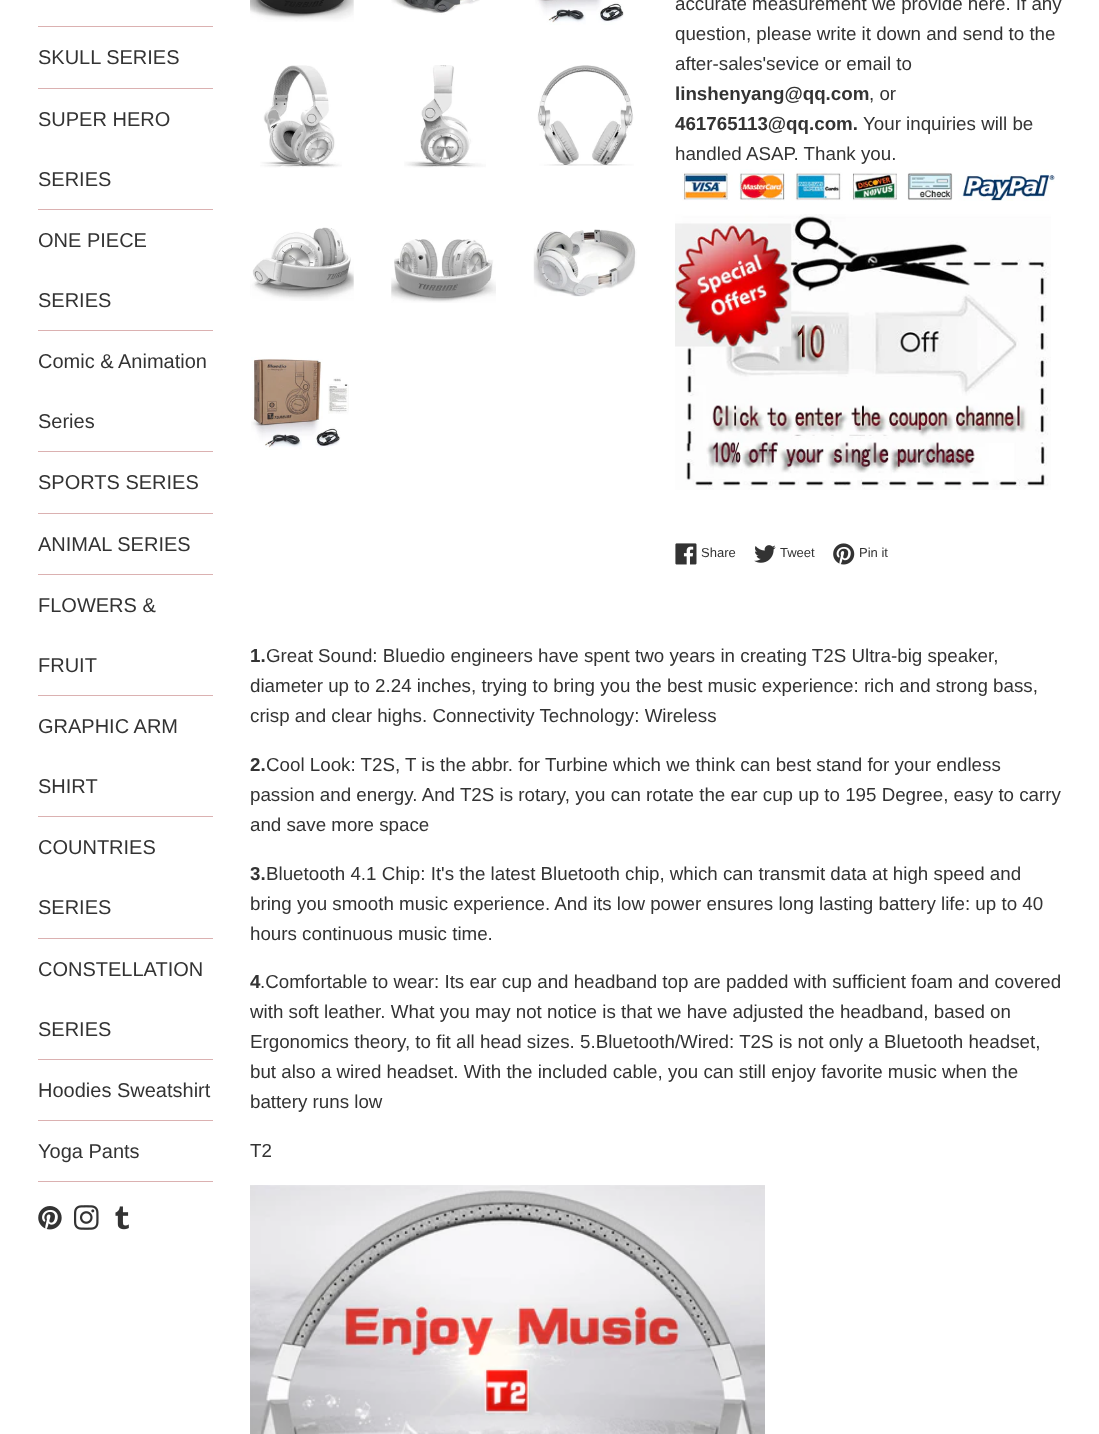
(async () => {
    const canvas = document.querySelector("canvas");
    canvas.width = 1099;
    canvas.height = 1434;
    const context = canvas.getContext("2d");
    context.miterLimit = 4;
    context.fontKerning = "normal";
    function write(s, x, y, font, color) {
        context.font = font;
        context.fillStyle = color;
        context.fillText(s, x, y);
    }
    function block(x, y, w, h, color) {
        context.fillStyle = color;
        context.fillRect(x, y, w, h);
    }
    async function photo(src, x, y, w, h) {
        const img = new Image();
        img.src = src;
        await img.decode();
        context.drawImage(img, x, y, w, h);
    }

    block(0, 0, 1099, 1434, "rgb(255, 255, 255)");
    block(38, 26, 175, 1, "rgb(219, 177, 177)");
    block(38, 88, 175, 1, "rgb(219, 177, 177)");
    write("SKULL SERIES", 38, 64, "20px Liberation Sans", "rgb(51, 51, 51)");
    block(38, 209, 175, 1, "rgb(219, 177, 177)");
    write("SUPER HERO", 38, 126, "20px Liberation Sans", "rgb(51, 51, 51)");
    write("SERIES", 38, 186, "20px Liberation Sans", "rgb(51, 51, 51)");
    block(38, 330, 175, 1, "rgb(219, 177, 177)");
    write("ONE PIECE", 38, 247, "20px Liberation Sans", "rgb(51, 51, 51)");
    write("SERIES", 38, 307, "20px Liberation Sans", "rgb(51, 51, 51)");
    block(38, 451, 175, 1, "rgb(219, 177, 177)");
    write("Comic & Animation", 38, 368, "20px Liberation Sans", "rgb(51, 51, 51)");
    write("Series", 38, 428, "20px Liberation Sans", "rgb(51, 51, 51)");
    block(38, 513, 175, 1, "rgb(219, 177, 177)");
    write("SPORTS SERIES", 38, 489, "20px Liberation Sans", "rgb(51, 51, 51)");
    block(38, 574, 175, 1, "rgb(219, 177, 177)");
    write("ANIMAL SERIES", 38, 551, "20px Liberation Sans", "rgb(51, 51, 51)");
    block(38, 695, 175, 1, "rgb(219, 177, 177)");
    write("FLOWERS &", 38, 612, "20px Liberation Sans", "rgb(51, 51, 51)");
    write("FRUIT", 38, 672, "20px Liberation Sans", "rgb(51, 51, 51)");
    block(38, 816, 175, 1, "rgb(219, 177, 177)");
    write("GRAPHIC ARM", 38, 733, "20px Liberation Sans", "rgb(51, 51, 51)");
    write("SHIRT", 38, 793, "20px Liberation Sans", "rgb(51, 51, 51)");
    block(38, 938, 175, 1, "rgb(219, 177, 177)");
    write("COUNTRIES", 38, 854, "20px Liberation Sans", "rgb(51, 51, 51)");
    write("SERIES", 38, 914, "20px Liberation Sans", "rgb(51, 51, 51)");
    block(38, 1059, 175, 1, "rgb(219, 177, 177)");
    write("CONSTELLATION", 38, 976, "20px Liberation Sans", "rgb(51, 51, 51)");
    write("SERIES", 38, 1036, "20px Liberation Sans", "rgb(51, 51, 51)");
    block(38, 1120, 175, 1, "rgb(219, 177, 177)");
    write("Hoodies Sweatshirt", 38, 1097, "20px Liberation Sans", "rgb(51, 51, 51)");
    block(38, 1181, 175, 1, "rgb(219, 177, 177)");
    write("Yoga Pants", 38, 1158, "20px Liberation Sans", "rgb(51, 51, 51)");
    await photo("media/1.png", 38, 1206, 24, 24);
    await photo("media/2.png", 74, 1205, 25, 25);
    await photo("media/3.png", 115, 1206, 14, 24);
    await photo("media/4.png", 250, 0, 104, 22);
    await photo("media/5.png", 391, 0, 89, 15);
    await photo("media/6.png", 535, 0, 89, 25);
    await photo("media/7.png", 260, 65, 82, 103);
    await photo("media/8.png", 404, 65, 82, 103);
    await photo("media/9.png", 537, 65, 97, 101);
    await photo("media/10.png", 250, 227, 104, 74);
    await photo("media/11.png", 391, 239, 105, 64);
    await photo("media/12.png", 533, 229, 104, 68);
    await photo("media/13.png", 251, 357, 98, 93);
    write("accurate measurement we provide here. If any", 675, 10, "18.75px Liberation Sans", "rgb(51, 51, 51)");
    write("question, please write it down and send to the", 675, 40, "18.75px Liberation Sans", "rgb(51, 51, 51)");
    write("after-sales'sevice or email to", 675, 70, "18.75px Liberation Sans", "rgb(51, 51, 51)");
    write("linshenyang@qq.com", 675, 100, "bold 18.75px Liberation Sans", "rgb(51, 51, 51)");
    write(", or", 869, 100, "18.75px Liberation Sans", "rgb(51, 51, 51)");
    write("461765113@qq.com.", 675, 130, "bold 18.75px Liberation Sans", "rgb(51, 51, 51)");
    write("Your inquiries will be", 863, 130, "18.75px Liberation Sans", "rgb(51, 51, 51)");
    write("handled ASAP. Thank you.", 675, 160, "18.75px Liberation Sans", "rgb(51, 51, 51)");
    await photo("media/14.png", 682, 169, 373, 32);
    await photo("media/15.png", 675, 214, 376, 276);
    await photo("media/16.png", 675, 543, 22, 22);
    write("Share", 701, 557, "13px Liberation Sans", "rgb(51, 51, 51)");
    await photo("media/17.png", 754, 545, 22, 18);
    write("Tweet", 780, 557, "13px Liberation Sans", "rgb(51, 51, 51)");
    await photo("media/18.png", 833, 543, 22, 22);
    write("Pin it", 859, 557, "13px Liberation Sans", "rgb(51, 51, 51)");
    write("1.", 250, 662, "bold 18.75px Liberation Sans", "rgb(51, 51, 51)");
    write("Great Sound: Bluedio engineers have spent two years in creating T2S Ultra-big speaker,", 266, 662, "18.75px Liberation Sans", "rgb(51, 51, 51)");
    write("diameter up to 2.24 inches, trying to bring you the best music experience: rich and strong bass,", 250, 692, "18.75px Liberation Sans", "rgb(51, 51, 51)");
    write("crisp and clear highs. Connectivity Technology: Wireless", 250, 722, "18.75px Liberation Sans", "rgb(51, 51, 51)");
    write("2.", 250, 771, "bold 18.75px Liberation Sans", "rgb(51, 51, 51)");
    write("Cool Look: T2S, T is the abbr. for Turbine which we think can best stand for your endless", 266, 771, "18.75px Liberation Sans", "rgb(51, 51, 51)");
    write("passion and energy. And T2S is rotary, you can rotate the ear cup up to 195 Degree, easy to carry", 250, 801, "18.75px Liberation Sans", "rgb(51, 51, 51)");
    write("and save more space", 250, 831, "18.75px Liberation Sans", "rgb(51, 51, 51)");
    write("3.", 250, 880, "bold 18.75px Liberation Sans", "rgb(51, 51, 51)");
    write("Bluetooth 4.1 Chip: It's the latest Bluetooth chip, which can transmit data at high speed and", 266, 880, "18.75px Liberation Sans", "rgb(51, 51, 51)");
    write("bring you smooth music experience. And its low power ensures long lasting battery life: up to 40", 250, 910, "18.75px Liberation Sans", "rgb(51, 51, 51)");
    write("hours continuous music time.", 250, 940, "18.75px Liberation Sans", "rgb(51, 51, 51)");
    write("4", 250, 988, "bold 18.75px Liberation Sans", "rgb(51, 51, 51)");
    write(".Comfortable to wear: Its ear cup and headband top are padded with sufficient foam and covered", 260, 988, "18.75px Liberation Sans", "rgb(51, 51, 51)");
    write("with soft leather. What you may not notice is that we have adjusted the headband, based on", 250, 1018, "18.75px Liberation Sans", "rgb(51, 51, 51)");
    write("Ergonomics theory, to fit all head sizes. 5.Bluetooth/Wired: T2S is not only a Bluetooth headset,", 250, 1048, "18.75px Liberation Sans", "rgb(51, 51, 51)");
    write("but also a wired headset. With the included cable, you can still enjoy favorite music when the", 250, 1078, "18.75px Liberation Sans", "rgb(51, 51, 51)");
    write("battery runs low", 250, 1108, "18.75px Liberation Sans", "rgb(51, 51, 51)");
    write("T2", 250, 1157, "18.75px Liberation Sans", "rgb(51, 51, 51)");
    await photo("media/19.png", 250, 1185, 515, 249);
})();
